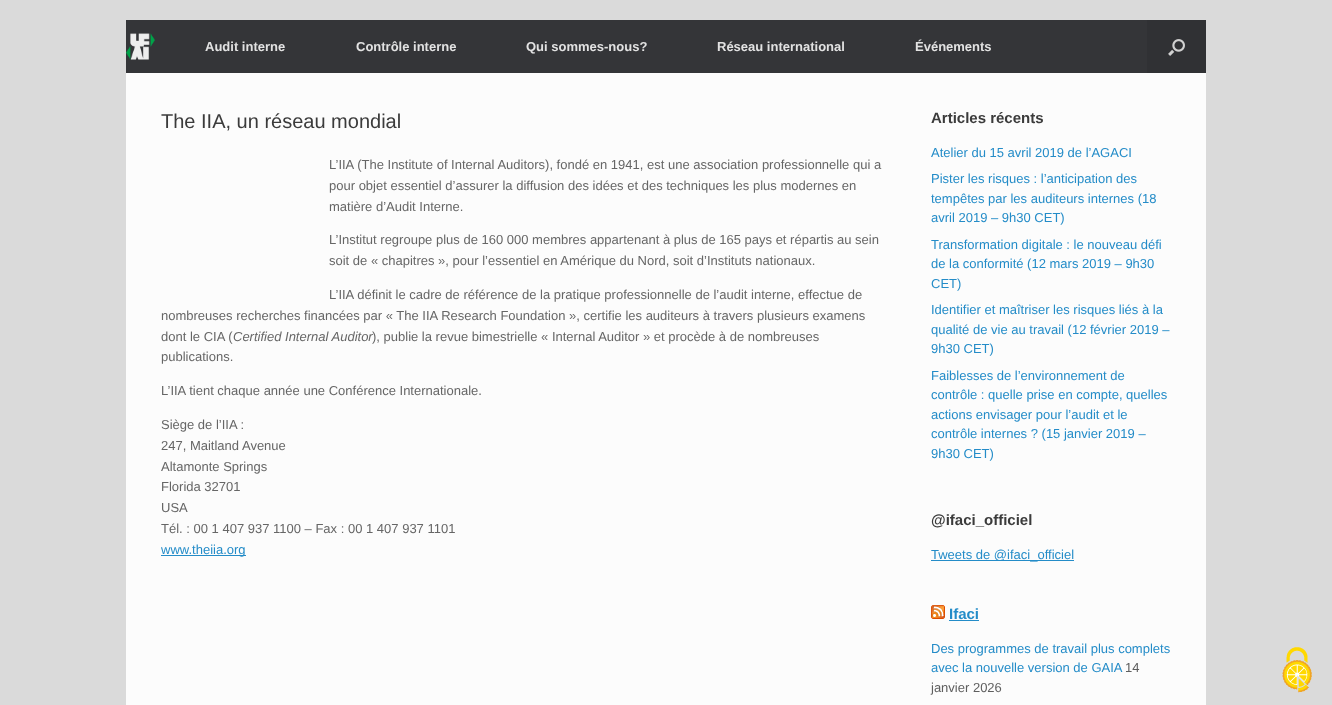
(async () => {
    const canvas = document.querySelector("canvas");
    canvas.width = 1332;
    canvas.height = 705;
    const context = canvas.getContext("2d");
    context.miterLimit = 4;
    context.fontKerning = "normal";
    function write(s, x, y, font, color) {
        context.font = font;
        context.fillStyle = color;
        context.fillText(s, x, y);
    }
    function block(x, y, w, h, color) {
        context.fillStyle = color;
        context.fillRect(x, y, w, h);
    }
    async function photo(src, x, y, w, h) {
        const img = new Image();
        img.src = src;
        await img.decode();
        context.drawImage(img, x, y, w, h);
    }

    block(0, 0, 1332, 705, "rgb(218, 218, 218)");
    block(126, 20, 1021, 53, "rgb(52, 53, 56)");
    await photo("media/1.png", 126, 33, 29, 27);
    write("Audit interne", 205, 51, "bold 13px Liberation Sans", "rgb(226, 226, 226)");
    write("Contrôle interne", 356, 51, "bold 13px Liberation Sans", "rgb(226, 226, 226)");
    write("Qui sommes-nous?", 526, 51, "bold 13px Liberation Sans", "rgb(226, 226, 226)");
    write("Réseau international", 717, 51, "bold 13px Liberation Sans", "rgb(226, 226, 226)");
    write("Événements", 915, 51, "bold 13px Liberation Sans", "rgb(226, 226, 226)");
    block(1147, 20, 59, 53, "rgb(48, 49, 52)");
    await photo("media/2.png", 1168, 39, 17, 17);
    block(126, 73, 1080, 632, "rgb(252, 252, 252)");
    write("The IIA, un réseau mondial", 161, 128, "20px Liberation Sans", "rgb(59, 59, 59)");
    write("L’IIA (The Institute of Internal Auditors), fondé en 1941, est une association professionnelle qui a", 329, 169, "13px Liberation Sans", "rgb(102, 102, 102)");
    write("pour objet essentiel d’assurer la diffusion des idées et des techniques les plus modernes en", 329, 190, "13px Liberation Sans", "rgb(102, 102, 102)");
    write("matière d’Audit Interne.", 329, 211, "13px Liberation Sans", "rgb(102, 102, 102)");
    write("L’Institut regroupe plus de 160 000 membres appartenant à plus de 165 pays et répartis au sein", 329, 244, "13px Liberation Sans", "rgb(102, 102, 102)");
    write("soit de « chapitres », pour l’essentiel en Amérique du Nord, soit d’Instituts nationaux.", 329, 265, "13px Liberation Sans", "rgb(102, 102, 102)");
    write("L’IIA définit le cadre de référence de la pratique professionnelle de l’audit interne, effectue de", 329, 299, "13px Liberation Sans", "rgb(102, 102, 102)");
    write("nombreuses recherches financées par « The IIA Research Foundation », certifie les auditeurs à travers plusieurs examens", 161, 320, "13px Liberation Sans", "rgb(102, 102, 102)");
    write("dont le CIA (", 161, 341, "13px Liberation Sans", "rgb(102, 102, 102)");
    write("Certified Internal Auditor", 233, 341, "italic 13px Liberation Sans", "rgb(102, 102, 102)");
    write("), publie la revue bimestrielle « Internal Auditor » et procède à de nombreuses", 372, 341, "13px Liberation Sans", "rgb(102, 102, 102)");
    write("publications.", 161, 361, "13px Liberation Sans", "rgb(102, 102, 102)");
    write("L’IIA tient chaque année une Conférence Internationale.", 161, 395, "13px Liberation Sans", "rgb(102, 102, 102)");
    write("Siège de l’IIA :", 161, 429, "13px Liberation Sans", "rgb(102, 102, 102)");
    write("247, Maitland Avenue", 161, 450, "13px Liberation Sans", "rgb(102, 102, 102)");
    write("Altamonte Springs", 161, 471, "13px Liberation Sans", "rgb(102, 102, 102)");
    write("Florida 32701", 161, 491, "13px Liberation Sans", "rgb(102, 102, 102)");
    write("USA", 161, 512, "13px Liberation Sans", "rgb(102, 102, 102)");
    write("Tél. : 00 1 407 937 1100 – Fax : 00 1 407 937 1101", 161, 533, "13px Liberation Sans", "rgb(102, 102, 102)");
    block(161, 555, 85, 1, "rgb(36, 140, 200)");
    write("www.theiia.org", 161, 554, "13px Liberation Sans", "rgb(36, 140, 200)");
    write("Articles récents", 931, 123, "bold 15px Liberation Sans", "rgb(59, 59, 59)");
    write("Atelier du 15 avril 2019 de l’AGACI", 931, 157, "13px Liberation Sans", "rgb(36, 140, 200)");
    write("Pister les risques : l’anticipation des", 931, 183, "13px Liberation Sans", "rgb(36, 140, 200)");
    write("tempêtes par les auditeurs internes (18", 931, 203, "13px Liberation Sans", "rgb(36, 140, 200)");
    write("avril 2019 – 9h30 CET)", 931, 222, "13px Liberation Sans", "rgb(36, 140, 200)");
    write("Transformation digitale : le nouveau défi", 931, 249, "13px Liberation Sans", "rgb(36, 140, 200)");
    write("de la conformité (12 mars 2019 – 9h30", 931, 268, "13px Liberation Sans", "rgb(36, 140, 200)");
    write("CET)", 931, 288, "13px Liberation Sans", "rgb(36, 140, 200)");
    write("Identifier et maîtriser les risques liés à la", 931, 314, "13px Liberation Sans", "rgb(36, 140, 200)");
    write("qualité de vie au travail (12 février 2019 –", 931, 334, "13px Liberation Sans", "rgb(36, 140, 200)");
    write("9h30 CET)", 931, 353, "13px Liberation Sans", "rgb(36, 140, 200)");
    write("Faiblesses de l’environnement de", 931, 380, "13px Liberation Sans", "rgb(36, 140, 200)");
    write("contrôle : quelle prise en compte, quelles", 931, 399, "13px Liberation Sans", "rgb(36, 140, 200)");
    write("actions envisager pour l’audit et le", 931, 419, "13px Liberation Sans", "rgb(36, 140, 200)");
    write("contrôle internes ? (15 janvier 2019 –", 931, 438, "13px Liberation Sans", "rgb(36, 140, 200)");
    write("9h30 CET)", 931, 458, "13px Liberation Sans", "rgb(36, 140, 200)");
    write("@ifaci_officiel", 931, 525, "bold 15px Liberation Sans", "rgb(59, 59, 59)");
    block(931, 560, 143, 1, "rgb(36, 140, 200)");
    write("Tweets de @ifaci_officiel", 931, 559, "13px Liberation Sans", "rgb(36, 140, 200)");
    await photo("media/3.png", 931, 605, 14, 14);
    write("Ifaci", 949, 619, "bold 15px Liberation Sans", "rgb(36, 140, 200)");
    block(949, 620, 30, 1, "rgb(36, 140, 200)");
    write("Des programmes de travail plus complets", 931, 653, "13px Liberation Sans", "rgb(36, 140, 200)");
    write("avec la nouvelle version de GAIA", 931, 672, "13px Liberation Sans", "rgb(36, 140, 200)");
    write("14", 1125, 672, "13px Liberation Sans", "rgb(94, 94, 94)");
    write("janvier 2026", 931, 692, "13px Liberation Sans", "rgb(94, 94, 94)");
    await photo("media/4.png", 1282, 647, 30, 46);
})();
